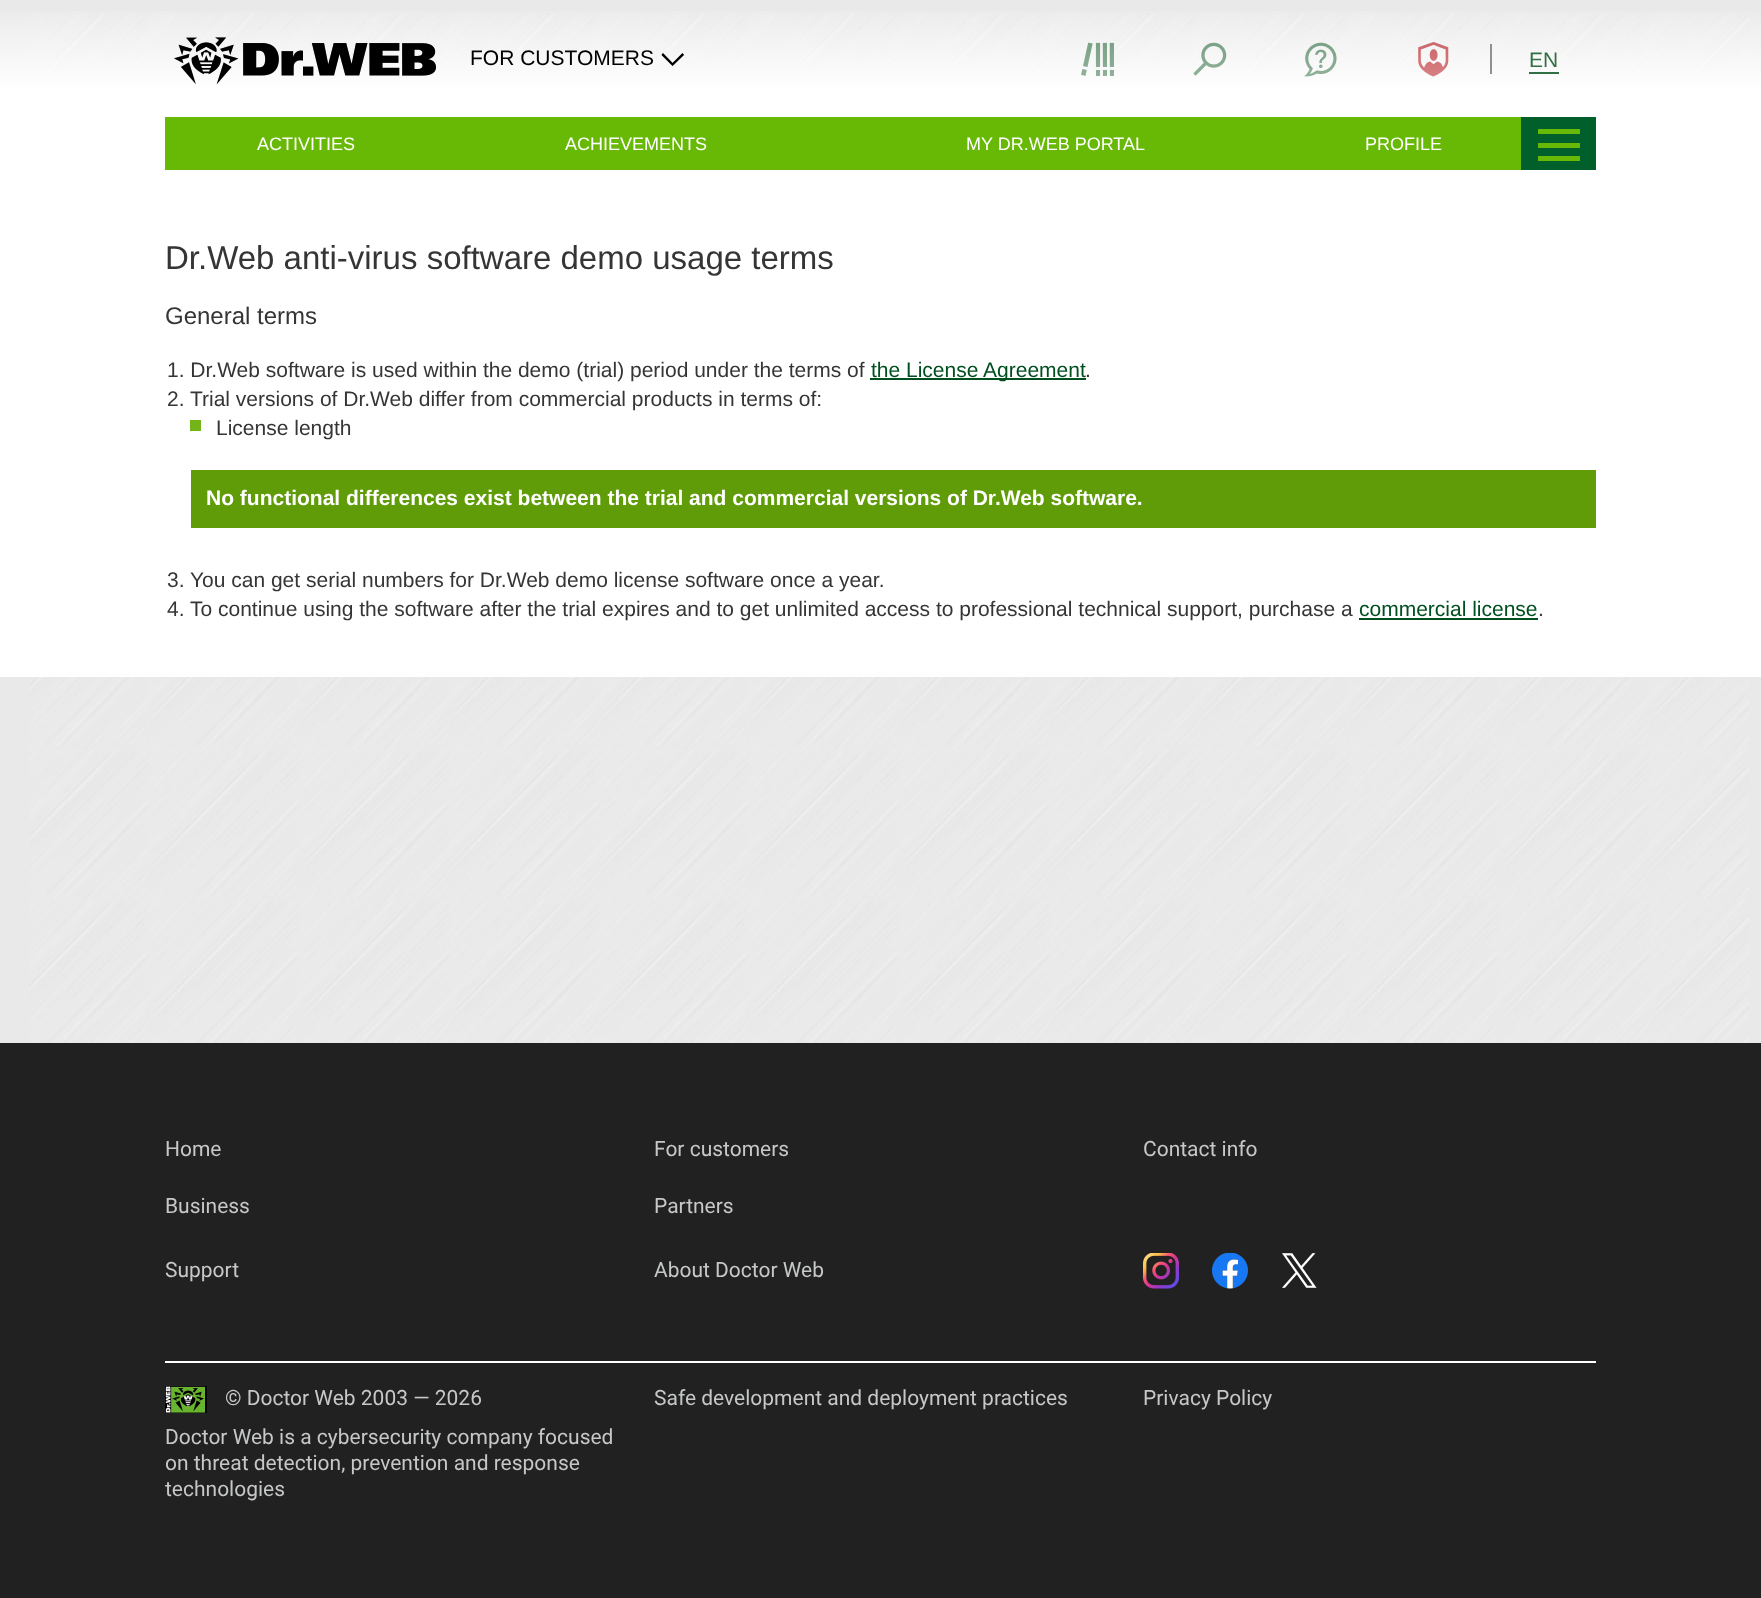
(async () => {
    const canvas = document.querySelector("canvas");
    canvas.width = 1761;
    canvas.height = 1598;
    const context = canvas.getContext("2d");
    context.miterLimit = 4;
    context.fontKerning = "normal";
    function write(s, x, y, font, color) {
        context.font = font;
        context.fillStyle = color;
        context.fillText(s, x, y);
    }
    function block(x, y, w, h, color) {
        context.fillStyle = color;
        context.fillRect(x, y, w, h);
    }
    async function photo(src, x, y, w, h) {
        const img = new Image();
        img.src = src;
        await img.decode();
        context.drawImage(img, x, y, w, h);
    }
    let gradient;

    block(0, 0, 1761, 1598, "rgb(233, 233, 233)");
    await photo("media/1.png", 29, 14, 1720, 1029);
    gradient = context.createLinearGradient(881, 0, 881, 192);
    gradient.addColorStop(0, "rgba(255, 255, 255, 0)");
    gradient.addColorStop(0.47, "rgb(255, 255, 255)");
    gradient.addColorStop(1, "rgb(255, 255, 255)");
    context.fillStyle = gradient;
    context.fillRect(0, 11, 1761, 181);
    await photo("media/2.png", 174, 37, 262, 48);
    write("FOR CUSTOMERS", 470, 65, "21px Liberation Sans", "rgb(0, 0, 0)");
    context.beginPath();
    context.moveTo(661.5, 55);
    context.lineTo(663, 53);
    context.lineTo(672.5, 63);
    context.lineTo(682.5, 53);
    context.lineTo(684, 55);
    context.lineTo(672.5, 66);
    context.closePath();
    context.fill();
    await photo("media/3.png", 1081, 42, 33, 34);
    await photo("media/4.png", 1193, 42, 34, 34);
    await photo("media/5.png", 1304, 42, 33, 35);
    await photo("media/6.png", 1418, 42, 31, 35);
    block(1490, 44, 2, 30, "rgb(144, 144, 144)");
    block(1529, 72, 30, 2, "rgb(49, 111, 68)");
    write("EN", 1529, 67, "21px Liberation Sans", "rgb(49, 111, 68)");
    block(165, 117, 1356, 53, "rgb(104, 185, 5)");
    write("ACTIVITIES", 257, 150, "18px Liberation Sans", "rgb(255, 255, 255)");
    write("ACHIEVEMENTS", 565, 150, "18px Liberation Sans", "rgb(255, 255, 255)");
    write("MY DR.WEB PORTAL", 966, 150, "18px Liberation Sans", "rgb(255, 255, 255)");
    write("PROFILE", 1365, 150, "18px Liberation Sans", "rgb(255, 255, 255)");
    block(1521, 117, 75, 53, "rgb(0, 95, 42)");
    block(1538, 129, 42, 5, "rgb(104, 185, 5)");
    block(1538, 143, 42, 5, "rgb(104, 185, 5)");
    block(1538, 156, 42, 5, "rgb(104, 185, 5)");
    block(0, 192, 1761, 485, "rgb(255, 255, 255)");
    write("Dr.Web anti-virus software demo usage terms", 165, 269, "33px Liberation Sans", "rgb(53, 53, 53)");
    write("General terms", 165, 324, "24px Liberation Sans", "rgb(53, 53, 53)");
    write("1. Dr.Web software is used within the demo (trial) period under the terms of", 167, 377, "21px Liberation Sans", "rgb(53, 53, 53)");
    block(870, 378, 216, 2, "rgb(0, 79, 31)");
    write("the License Agreement", 871, 377, "21px Liberation Sans", "rgb(0, 79, 31)");
    write(".", 1085, 377, "21px Liberation Sans", "rgb(53, 53, 53)");
    write("2. Trial versions of Dr.Web differ from commercial products in terms of:", 167, 406, "21px Liberation Sans", "rgb(53, 53, 53)");
    block(190, 420, 11, 11, "rgb(115, 180, 25)");
    write("License length", 216, 435, "21px Liberation Sans", "rgb(53, 53, 53)");
    block(191, 470, 1405, 58, "rgb(95, 156, 7)");
    write("No functional differences exist between the trial and commercial versions of Dr.Web software.", 206, 505, "bold 21px Liberation Sans", "rgb(255, 255, 255)");
    write("3. You can get serial numbers for Dr.Web demo license software once a year.", 167, 587, "21px Liberation Sans", "rgb(53, 53, 53)");
    write("4. To continue using the software after the trial expires and to get unlimited access to professional technical support, purchase a", 167, 616, "21px Liberation Sans", "rgb(53, 53, 53)");
    write("commercial license", 1359, 616, "21px Liberation Sans", "rgb(0, 79, 31)");
    block(1359, 618, 179, 2, "rgb(0, 79, 31)");
    write(".", 1538, 616, "21px Liberation Sans", "rgb(53, 53, 53)");
    block(0, 1043, 1761, 555, "rgb(33, 33, 33)");
    write("Home", 165, 1156, "21px Roboto", "rgb(198, 199, 200)");
    write("For customers", 654, 1156, "21px Roboto", "rgb(198, 199, 200)");
    write("Contact info", 1143, 1156, "21px Roboto", "rgb(198, 199, 200)");
    write("Business", 165, 1213, "21px Roboto", "rgb(198, 199, 200)");
    write("Partners", 654, 1213, "21px Roboto", "rgb(198, 199, 200)");
    write("Support", 165, 1277, "21px Roboto", "rgb(198, 199, 200)");
    write("About Doctor Web", 654, 1277, "21px Roboto", "rgb(198, 199, 200)");
    await photo("media/7.png", 1143, 1253, 36, 36);
    await photo("media/8.png", 1212, 1253, 36, 36);
    await photo("media/9.png", 1282, 1253, 35, 35);
    block(165, 1361, 1431, 2, "rgb(255, 255, 255)");
    await photo("media/10.png", 165, 1386, 42, 27);
    write("© Doctor Web 2003 — 2026", 225, 1405, "21px Roboto", "rgb(198, 199, 200)");
    write("Doctor Web is a cybersecurity company focused", 165, 1444, "21px Roboto", "rgb(198, 199, 200)");
    write("on threat detection, prevention and response", 165, 1470, "21px Roboto", "rgb(198, 199, 200)");
    write("technologies", 165, 1496, "21px Roboto", "rgb(198, 199, 200)");
    write("Safe development and deployment practices", 654, 1405, "21px Roboto", "rgb(198, 199, 200)");
    write("Privacy Policy", 1143, 1405, "21px Roboto", "rgb(198, 199, 200)");
})();
